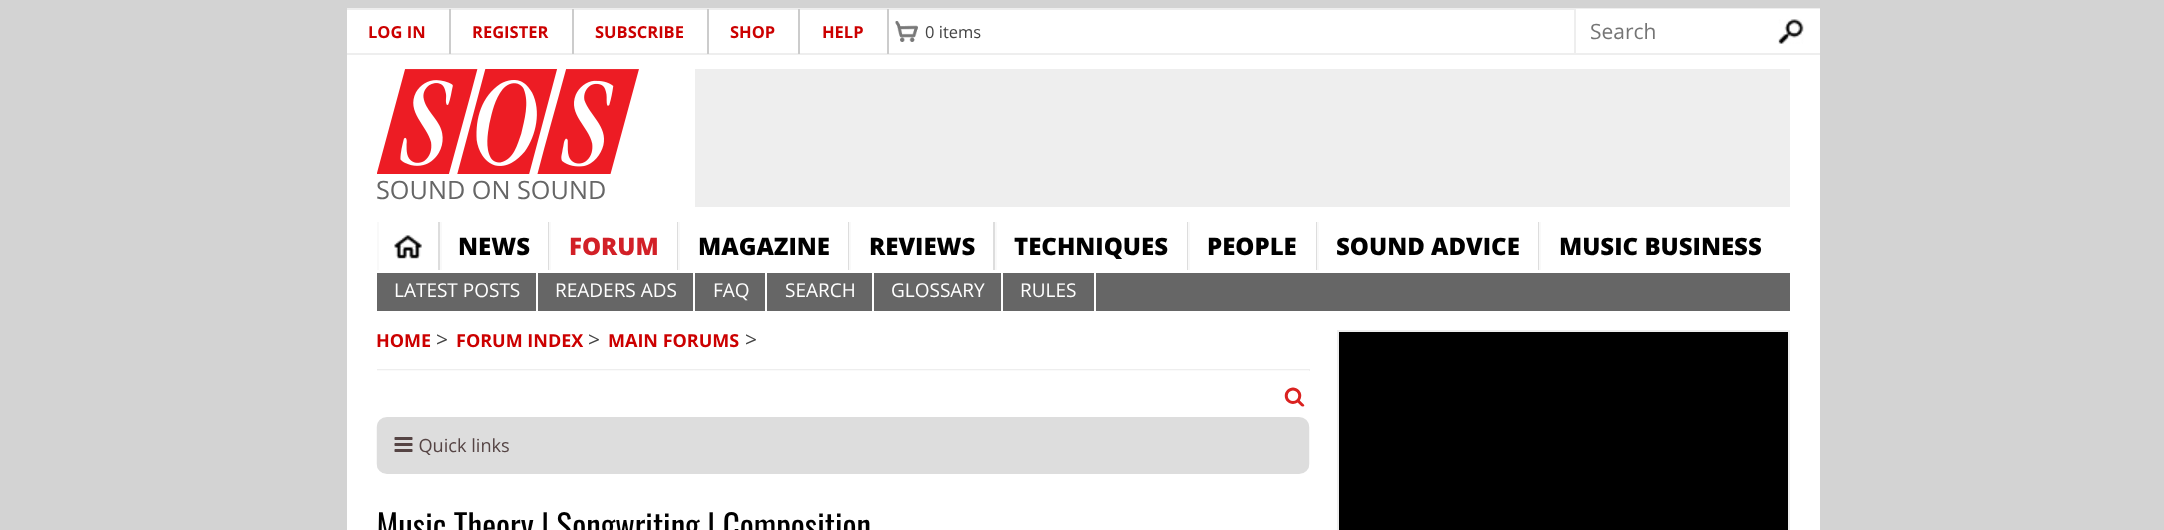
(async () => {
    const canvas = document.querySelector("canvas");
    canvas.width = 2164;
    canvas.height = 530;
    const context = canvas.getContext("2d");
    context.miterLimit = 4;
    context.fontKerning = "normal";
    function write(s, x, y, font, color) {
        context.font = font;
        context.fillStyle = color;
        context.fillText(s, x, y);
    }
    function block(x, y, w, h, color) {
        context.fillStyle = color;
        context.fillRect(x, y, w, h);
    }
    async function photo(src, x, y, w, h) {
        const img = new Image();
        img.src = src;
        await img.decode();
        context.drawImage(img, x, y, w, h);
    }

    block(0, 0, 2164, 530, "rgb(211, 211, 211)");
    block(347, 10, 1473, 520, "rgb(255, 255, 255)");
    block(347, 8, 1473, 2, "rgb(238, 238, 238)");
    block(347, 53, 1473, 2, "rgb(238, 238, 238)");
    block(449, 9, 2, 45, "rgb(204, 204, 204)");
    write("LOG IN", 368, 38, "bold 16.5px Open Sans", "rgb(204, 0, 0)");
    block(572, 9, 2, 45, "rgb(204, 204, 204)");
    write("REGISTER", 472, 38, "bold 16.5px Open Sans", "rgb(204, 0, 0)");
    block(707, 9, 2, 45, "rgb(204, 204, 204)");
    write("SUBSCRIBE", 595, 38, "bold 16.5px Open Sans", "rgb(204, 0, 0)");
    block(798, 9, 2, 45, "rgb(204, 204, 204)");
    write("SHOP", 730, 38, "bold 16.5px Open Sans", "rgb(204, 0, 0)");
    block(887, 9, 2, 45, "rgb(204, 204, 204)");
    write("HELP", 822, 38, "bold 16.5px Open Sans", "rgb(204, 0, 0)");
    await photo("media/1.png", 895, 21, 23, 21);
    write("0 items", 925, 38, "16.5px Open Sans", "rgb(68, 68, 68)");
    block(1576, 9, 244, 1, "rgb(255, 255, 255)");
    block(1574, 9, 2, 44, "rgb(238, 238, 238)");
    write("Search", 1590, 39, "21px Open Sans", "rgb(117, 117, 117)");
    await photo("media/2.png", 1778, 19, 26, 25);
    await photo("media/3.png", 377, 69, 262, 105);
    write("SOUND ON SOUND", 376, 199, "25.25px Open Sans", "rgb(102, 102, 102)");
    block(695, 69, 1095, 138, "rgb(238, 238, 238)");
    block(438, 222, 2, 48, "rgb(221, 221, 221)");
    block(377, 222, 2, 48, "rgb(249, 249, 249)");
    await photo("media/4.png", 394, 235, 28, 24);
    block(548, 222, 1, 48, "rgb(221, 221, 221)");
    block(440, 222, 2, 48, "rgb(249, 249, 249)");
    write("NEWS", 458, 255, "800 24px Open Sans", "rgb(0, 0, 0)");
    block(677, 222, 1, 48, "rgb(221, 221, 221)");
    block(549, 222, 2, 48, "rgb(249, 249, 249)");
    write("FORUM", 569, 255, "800 24px Open Sans", "rgb(210, 32, 39)");
    block(848, 222, 1, 48, "rgb(221, 221, 221)");
    block(678, 222, 2, 48, "rgb(249, 249, 249)");
    write("MAGAZINE", 698, 255, "800 24px Open Sans", "rgb(0, 0, 0)");
    block(993, 222, 2, 48, "rgb(221, 221, 221)");
    block(849, 222, 2, 48, "rgb(249, 249, 249)");
    write("REVIEWS", 869, 255, "800 24px Open Sans", "rgb(0, 0, 0)");
    block(1187, 222, 1, 48, "rgb(221, 221, 221)");
    block(995, 222, 2, 48, "rgb(249, 249, 249)");
    write("TECHNIQUES", 1014, 255, "800 24px Open Sans", "rgb(0, 0, 0)");
    block(1316, 222, 1, 48, "rgb(221, 221, 221)");
    block(1188, 222, 2, 48, "rgb(249, 249, 249)");
    write("PEOPLE", 1207, 255, "800 24px Open Sans", "rgb(0, 0, 0)");
    block(1538, 222, 1, 48, "rgb(221, 221, 221)");
    block(1317, 222, 2, 48, "rgb(249, 249, 249)");
    write("SOUND ADVICE", 1336, 255, "800 24px Open Sans", "rgb(0, 0, 0)");
    block(1539, 222, 2, 48, "rgb(249, 249, 249)");
    write("MUSIC BUSINESS", 1559, 255, "800 24px Open Sans", "rgb(0, 0, 0)");
    block(377, 273, 1413, 38, "rgb(102, 102, 102)");
    block(536, 273, 2, 38, "rgb(255, 255, 255)");
    write("LATEST POSTS", 394, 297, "19px Open Sans", "rgb(255, 255, 255)");
    block(693, 273, 2, 38, "rgb(255, 255, 255)");
    write("READERS ADS", 555, 297, "19px Open Sans", "rgb(255, 255, 255)");
    block(765, 273, 2, 38, "rgb(255, 255, 255)");
    write("FAQ", 713, 297, "19px Open Sans", "rgb(255, 255, 255)");
    block(872, 273, 2, 38, "rgb(255, 255, 255)");
    write("SEARCH", 785, 297, "19px Open Sans", "rgb(255, 255, 255)");
    block(1001, 273, 2, 38, "rgb(255, 255, 255)");
    write("GLOSSARY", 891, 297, "19px Open Sans", "rgb(255, 255, 255)");
    block(1094, 273, 2, 38, "rgb(255, 255, 255)");
    write("RULES", 1020, 297, "19px Open Sans", "rgb(255, 255, 255)");
    block(377, 369, 933, 2, "rgb(238, 238, 238)");
    write("HOME", 376, 347, "bold 18px Open Sans", "rgb(204, 0, 0)");
    write(">", 436, 347, "21px Open Sans", "rgb(68, 68, 68)");
    write("FORUM INDEX", 456, 347, "bold 18px Open Sans", "rgb(204, 0, 0)");
    write(">", 588, 347, "21px Open Sans", "rgb(68, 68, 68)");
    write("MAIN FORUMS", 608, 347, "bold 18px Open Sans", "rgb(204, 0, 0)");
    write(">", 745, 347, "21px Open Sans", "rgb(68, 68, 68)");
    await photo("media/5.png", 376, 370, 934, 160);
    block(377, 370, 932, 1, "rgb(250, 250, 250)");
    context.fillStyle = "rgb(0, 0, 0)";
    context.beginPath();
    context.rect(1338, 331, 451, 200);
    context.fill();
    context.strokeStyle = "rgb(238, 238, 238)";
    context.lineWidth = 2;
    context.stroke();
})();
